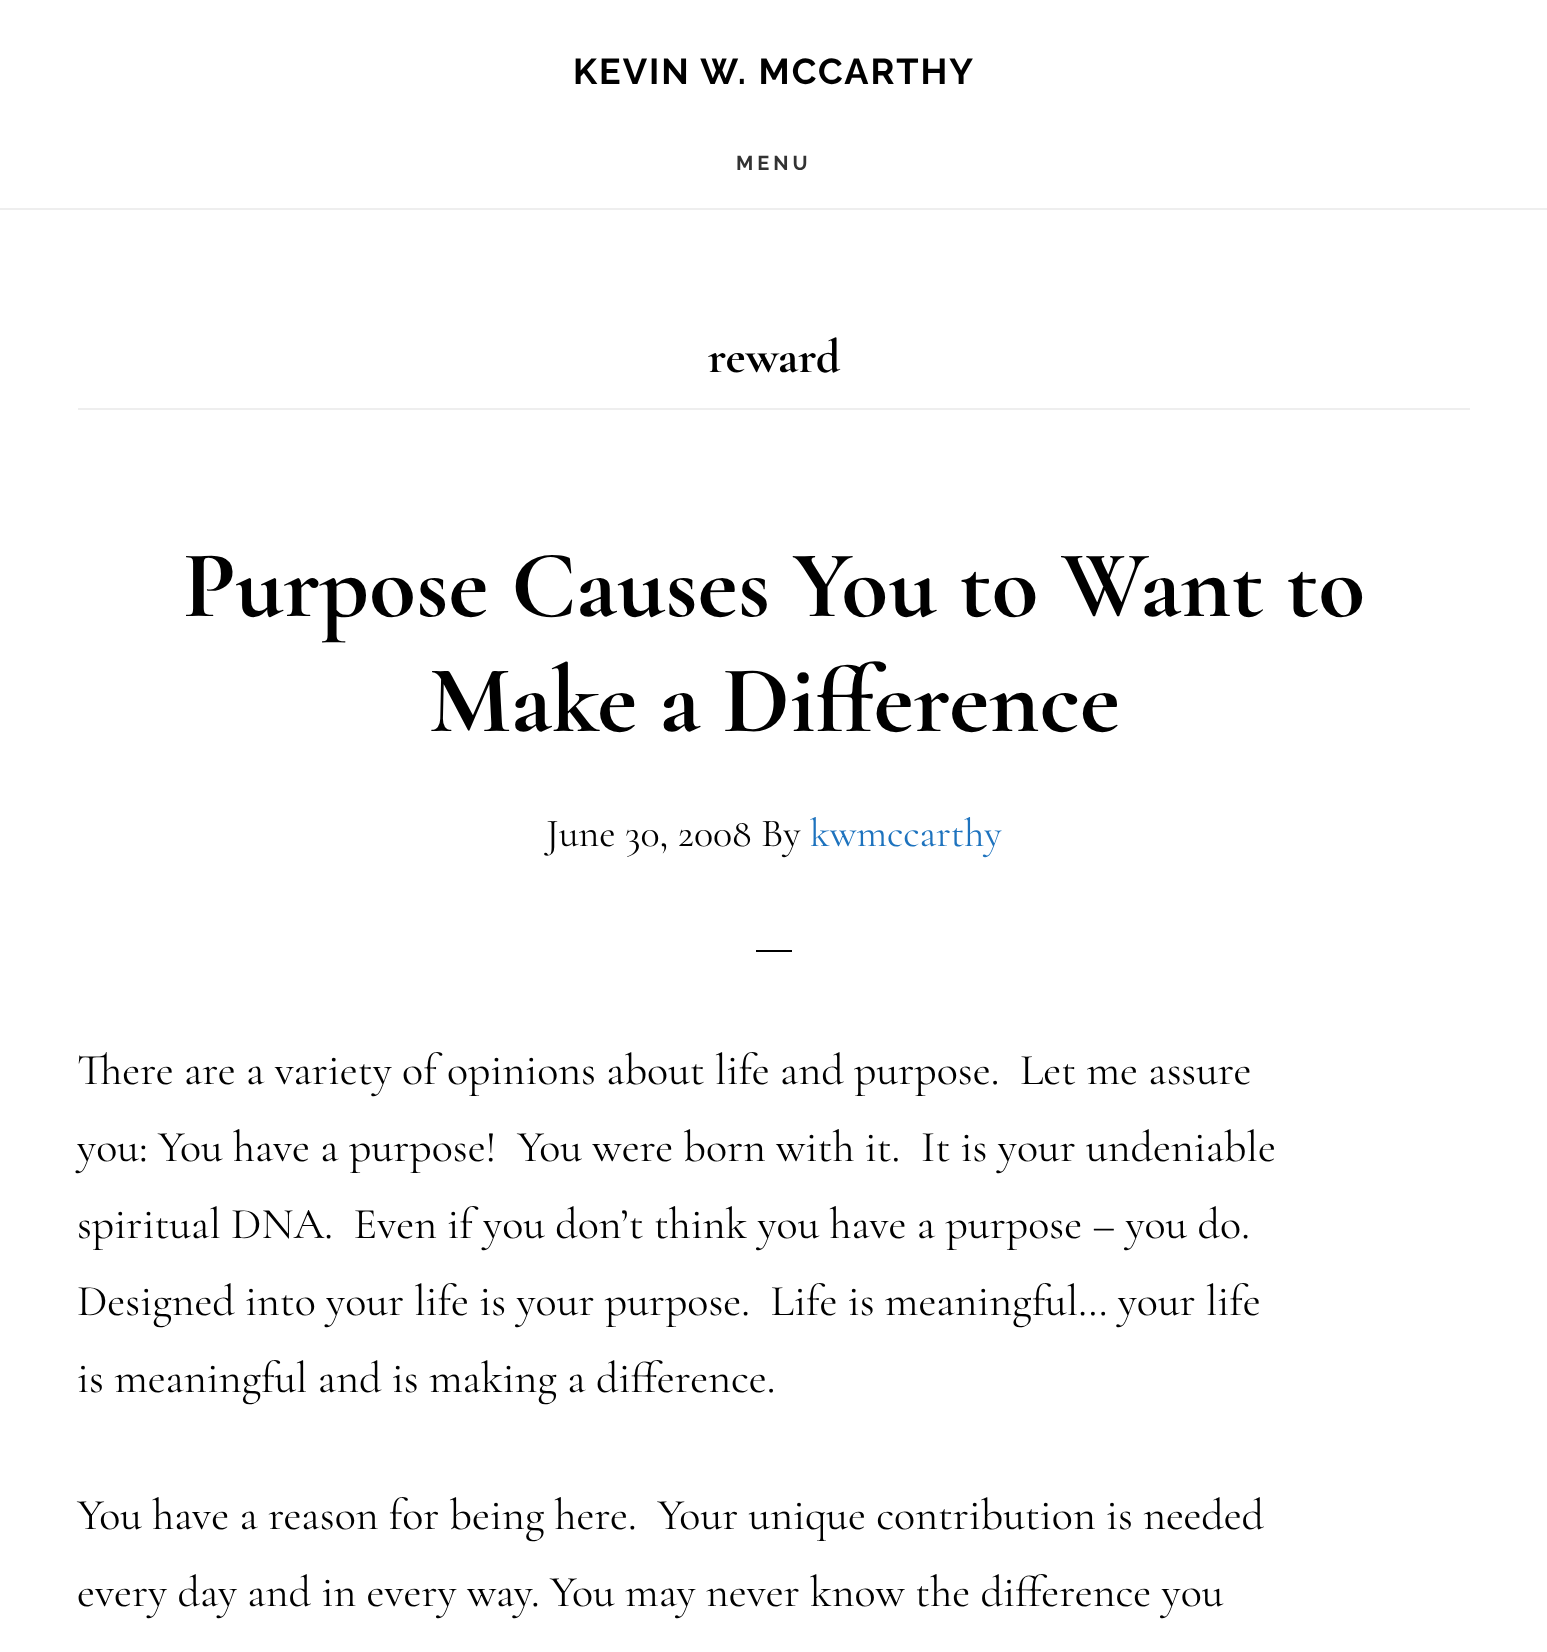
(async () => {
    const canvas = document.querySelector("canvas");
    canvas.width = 1547;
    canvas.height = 1652;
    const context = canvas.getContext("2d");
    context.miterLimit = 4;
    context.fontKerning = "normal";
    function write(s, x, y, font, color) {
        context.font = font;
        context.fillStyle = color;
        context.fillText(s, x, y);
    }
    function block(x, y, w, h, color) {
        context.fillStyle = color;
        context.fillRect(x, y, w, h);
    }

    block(0, 0, 1547, 1652, "rgb(255, 255, 255)");
    block(0, 208, 1547, 2, "rgb(238, 238, 238)");
    context.letterSpacing = "2px";
    write("KEVIN W. MCCARTHY", 573, 84, "100 36px Raleway", "rgb(0, 0, 0)");
    context.letterSpacing = "4px";
    write("MENU", 736, 170, "100 20px Raleway", "rgb(51, 51, 51)");
    block(78, 408, 1392, 2, "rgb(238, 238, 238)");
    context.letterSpacing = "0px";
    write("reward", 708, 372, "bold 48px Cormorant Garamond", "rgb(0, 0, 0)");
    write("Purpose Causes You to Want to", 183, 616, "bold 96px Cormorant Garamond", "rgb(0, 0, 0)");
    write("Make a Difference", 429, 731, "bold 96px Cormorant Garamond", "rgb(0, 0, 0)");
    write("June 30, 2008 By", 546, 846, "40px Cormorant Garamond", "rgb(0, 0, 0)");
    write("kwmccarthy", 810, 846, "40px Cormorant Garamond", "rgb(30, 115, 190)");
    block(756, 950, 36, 2, "rgb(0, 0, 0)");
    write("There are a variety of opinions about life and purpose.  Let me assure", 77, 1084, "44px Cormorant Garamond", "rgb(0, 0, 0)");
    write("you: You have a purpose!  You were born with it.  It is your undeniable", 77, 1161, "44px Cormorant Garamond", "rgb(0, 0, 0)");
    write("spiritual DNA.  Even if you don’t think you have a purpose – you do.", 77, 1238, "44px Cormorant Garamond", "rgb(0, 0, 0)");
    write("Designed into your life is your purpose.  Life is meaningful… your life", 77, 1315, "44px Cormorant Garamond", "rgb(0, 0, 0)");
    write("is meaningful and is making a difference.", 77, 1392, "44px Cormorant Garamond", "rgb(0, 0, 0)");
    write("You have a reason for being here.  Your unique contribution is needed", 77, 1529, "44px Cormorant Garamond", "rgb(0, 0, 0)");
    write("every day and in every way. You may never know the difference you", 77, 1606, "44px Cormorant Garamond", "rgb(0, 0, 0)");
})();
